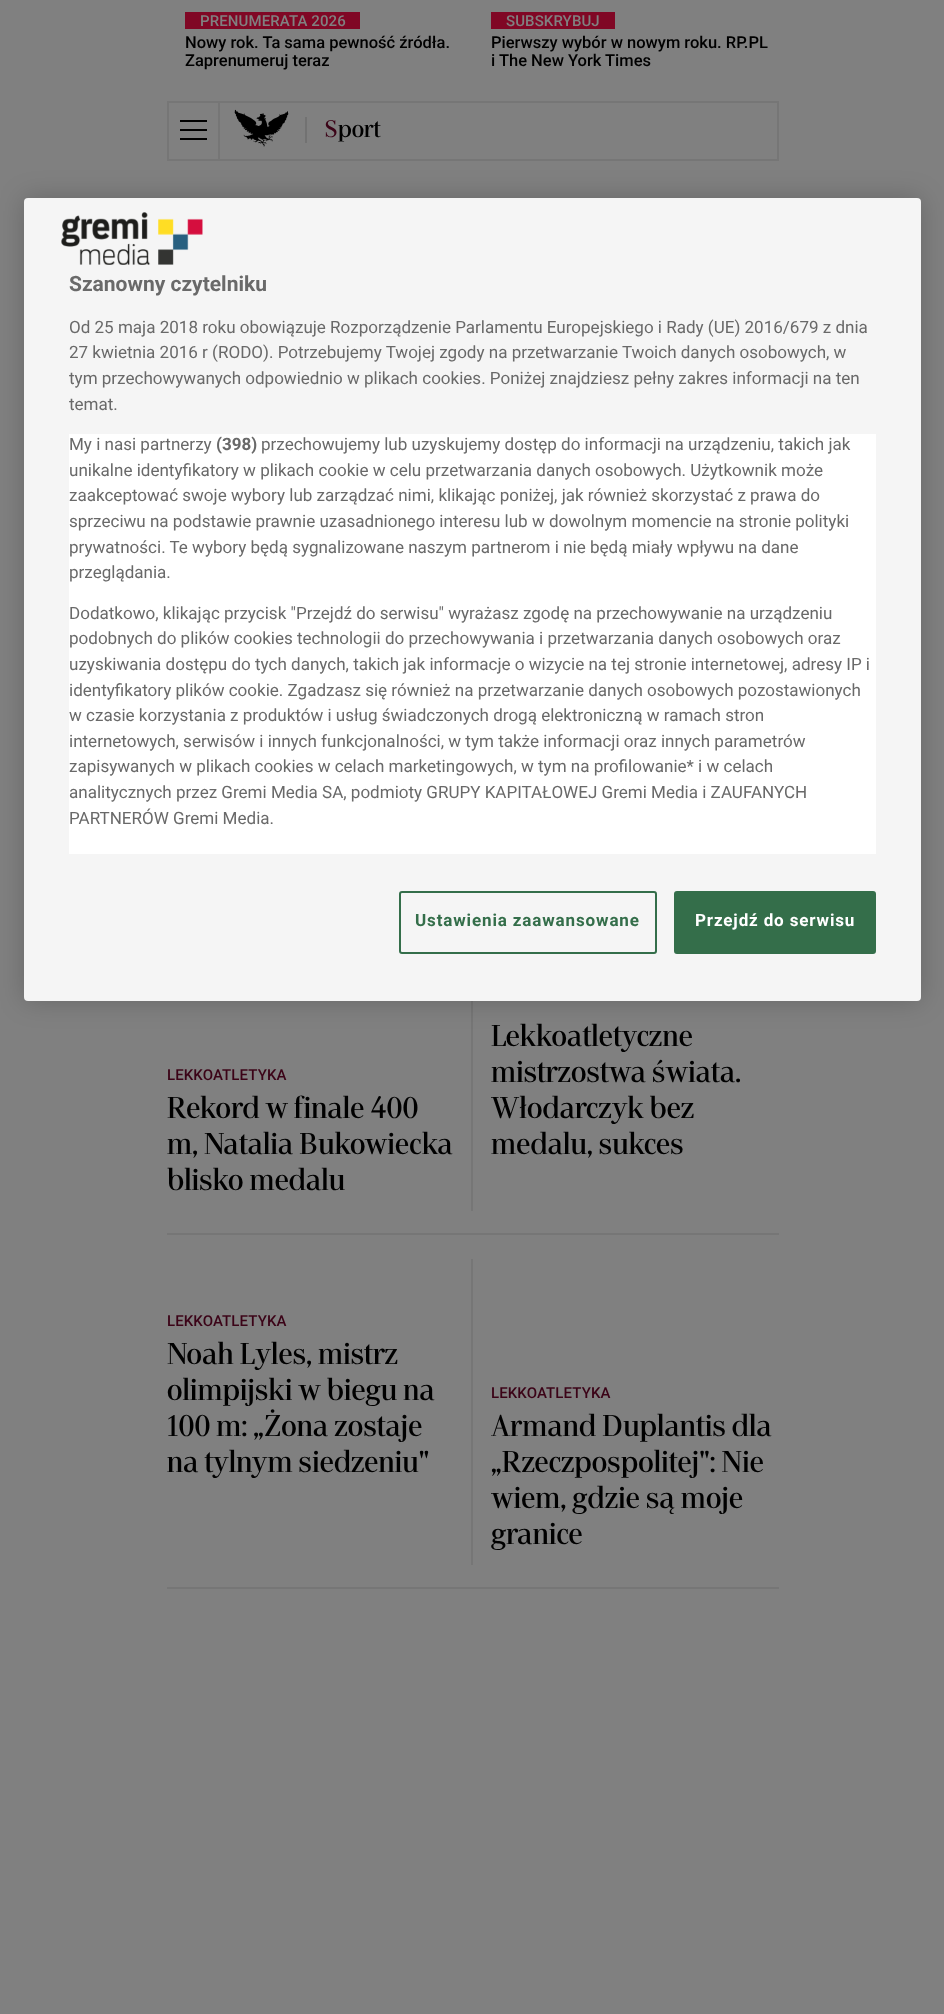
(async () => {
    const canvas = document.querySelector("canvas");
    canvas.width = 944;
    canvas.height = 2014;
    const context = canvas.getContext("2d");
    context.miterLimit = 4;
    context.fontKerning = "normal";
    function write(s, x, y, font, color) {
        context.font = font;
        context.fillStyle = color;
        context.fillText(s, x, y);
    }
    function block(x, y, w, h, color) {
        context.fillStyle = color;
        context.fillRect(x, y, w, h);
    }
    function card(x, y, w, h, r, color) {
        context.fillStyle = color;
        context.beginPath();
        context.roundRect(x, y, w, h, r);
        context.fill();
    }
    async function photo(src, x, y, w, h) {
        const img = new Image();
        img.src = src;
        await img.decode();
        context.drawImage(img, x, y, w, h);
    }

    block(0, 0, 944, 2014, "rgb(128, 128, 128)");
    block(185, 12, 175, 17, "rgb(128, 7, 37)");
    context.letterSpacing = "0.1px";
    write("PRENUMERATA 2026", 200, 26, "500 15px Roboto", "rgb(128, 128, 128)");
    context.letterSpacing = "0px";
    write("Nowy rok. Ta sama pewność źródła.", 185, 48, "500 16.5px Roboto", "rgb(0, 0, 0)");
    write("Zaprenumeruj teraz", 185, 66, "500 16.5px Roboto", "rgb(0, 0, 0)");
    block(491, 12, 124, 17, "rgb(128, 7, 37)");
    context.letterSpacing = "0.1px";
    write("SUBSKRYBUJ", 506, 26, "500 15px Roboto", "rgb(128, 128, 128)");
    context.letterSpacing = "0px";
    write("Pierwszy wybór w nowym roku. RP.PL", 491, 48, "500 16.5px Roboto", "rgb(0, 0, 0)");
    write("i The New York Times", 491, 66, "500 16.5px Roboto", "rgb(0, 0, 0)");
    block(167, 101, 612, 2, "rgb(118, 118, 118)");
    block(167, 159, 612, 2, "rgb(118, 118, 118)");
    block(777, 102, 2, 57, "rgb(118, 118, 118)");
    block(218, 102, 2, 57, "rgb(118, 118, 118)");
    block(167, 102, 2, 57, "rgb(118, 118, 118)");
    block(180, 120, 27, 2, "rgb(0, 0, 0)");
    block(180, 129, 27, 2, "rgb(0, 0, 0)");
    block(180, 138, 27, 2, "rgb(0, 0, 0)");
    await photo("media/1.png", 234, 109, 55, 38);
    block(305, 117, 2, 26, "rgb(114, 114, 114)");
    write("S", 324, 137, "600 24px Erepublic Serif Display", "rgb(59, 3, 23)");
    write("port", 338, 137, "600 24px Erepublic Serif Display", "rgb(0, 0, 0)");
    block(471, 1001, 2, 210, "rgb(118, 118, 118)");
    context.fillStyle = "rgba(0, 0, 0, 0.2)";
    context.filter = "blur(13.5px)";
    context.beginPath();
    context.roundRect(24, 198, 897, 803, 4);
    context.fill();
    context.filter = "none";
    card(24, 198, 897, 803, 4, "rgb(245, 245, 245)");
    await photo("media/2.png", 61, 212, 142, 53);
    write("Szanowny czytelniku", 69, 291, "bold 21px Roboto", "rgb(105, 105, 105)");
    write("Od 25 maja 2018 roku obowiązuje Rozporządzenie Parlamentu Europejskiego i Rady (UE) 2016/679 z dnia", 69, 333, "17.05px Roboto", "rgb(105, 105, 105)");
    write("27 kwietnia 2016 r (RODO). Potrzebujemy Twojej zgody na przetwarzanie Twoich danych osobowych, w", 69, 358, "17.05px Roboto", "rgb(105, 105, 105)");
    write("tym przechowywanych odpowiednio w plikach cookies. Poniżej znajdziesz pełny zakres informacji na ten", 69, 384, "17.05px Roboto", "rgb(105, 105, 105)");
    write("temat.", 69, 410, "17.05px Roboto", "rgb(105, 105, 105)");
    block(69, 434, 807, 420, "rgb(255, 255, 255)");
    write("My i nasi partnerzy", 69, 450, "17.05px Roboto", "rgb(105, 105, 105)");
    write("(398)", 216, 450, "bold 17.05px Roboto", "rgb(105, 105, 105)");
    write("przechowujemy lub uzyskujemy dostęp do informacji na urządzeniu, takich jak", 261, 450, "17.05px Roboto", "rgb(105, 105, 105)");
    write("unikalne identyfikatory w plikach cookie w celu przetwarzania danych osobowych. Użytkownik może", 69, 476, "17.05px Roboto", "rgb(105, 105, 105)");
    write("zaakceptować swoje wybory lub zarządzać nimi, klikając poniżej, jak również skorzystać z prawa do", 69, 501, "17.05px Roboto", "rgb(105, 105, 105)");
    write("sprzeciwu na podstawie prawnie uzasadnionego interesu lub w dowolnym momencie na stronie polityki", 69, 527, "17.05px Roboto", "rgb(105, 105, 105)");
    write("prywatności. Te wybory będą sygnalizowane naszym partnerom i nie będą miały wpływu na dane", 69, 553, "17.05px Roboto", "rgb(105, 105, 105)");
    write("przeglądania.", 69, 578, "17.05px Roboto", "rgb(105, 105, 105)");
    write("Dodatkowo, klikając przycisk \"Przejdź do serwisu\" wyrażasz zgodę na przechowywanie na urządzeniu", 69, 619, "17.05px Roboto", "rgb(105, 105, 105)");
    write("podobnych do plików cookies technologii do przechowywania i przetwarzania danych osobowych oraz", 69, 644, "17.05px Roboto", "rgb(105, 105, 105)");
    write("uzyskiwania dostępu do tych danych, takich jak informacje o wizycie na tej stronie internetowej, adresy IP i", 69, 670, "17.05px Roboto", "rgb(105, 105, 105)");
    write("identyfikatory plików cookie. Zgadzasz się również na przetwarzanie danych osobowych pozostawionych", 69, 696, "17.05px Roboto", "rgb(105, 105, 105)");
    write("w czasie korzystania z produktów i usług świadczonych drogą elektroniczną w ramach stron", 69, 721, "17.05px Roboto", "rgb(105, 105, 105)");
    write("internetowych, serwisów i innych funkcjonalności, w tym także informacji oraz innych parametrów", 69, 747, "17.05px Roboto", "rgb(105, 105, 105)");
    write("zapisywanych w plikach cookies w celach marketingowych, w tym na profilowanie* i w celach", 69, 772, "17.05px Roboto", "rgb(105, 105, 105)");
    write("analitycznych przez Gremi Media SA, podmioty GRUPY KAPITAŁOWEJ Gremi Media i ZAUFANYCH", 69, 798, "17.05px Roboto", "rgb(105, 105, 105)");
    write("PARTNERÓW Gremi Media.", 69, 824, "17.05px Roboto", "rgb(105, 105, 105)");
    context.beginPath();
    context.roundRect(400, 892, 256, 61, 2);
    context.strokeStyle = "rgb(52, 110, 74)";
    context.lineWidth = 2;
    context.stroke();
    context.letterSpacing = "0.85px";
    write("Ustawienia zaawansowane", 415, 926, "bold 17.05px Roboto", "rgb(52, 110, 74)");
    context.beginPath();
    context.roundRect(675, 892, 200, 61, 2);
    context.fill();
    context.stroke();
    write("Przejdź do serwisu", 695, 926, "bold 17.05px Roboto", "rgb(255, 255, 255)");
    context.letterSpacing = "0.15px";
    write("Lekkoatletyczne", 491, 1046, "600 30px Erepublic Serif Display", "rgb(0, 0, 0)");
    write("mistrzostwa świata.", 491, 1082, "600 30px Erepublic Serif Display", "rgb(0, 0, 0)");
    write("Włodarczyk bez", 491, 1118, "600 30px Erepublic Serif Display", "rgb(0, 0, 0)");
    write("medalu, sukces", 491, 1154, "600 30px Erepublic Serif Display", "rgb(0, 0, 0)");
    context.letterSpacing = "0.1px";
    write("LEKKOATLETYKA", 167, 1326, "500 15px Roboto", "rgb(59, 3, 23)");
    context.letterSpacing = "0.15px";
    write("Noah Lyles, mistrz", 167, 1364, "600 30px Erepublic Serif Display", "rgb(0, 0, 0)");
    write("olimpijski w biegu na", 167, 1400, "600 30px Erepublic Serif Display", "rgb(0, 0, 0)");
    write("100 m: „Żona zostaje", 167, 1436, "600 30px Erepublic Serif Display", "rgb(0, 0, 0)");
    write("na tylnym siedzeniu\"", 167, 1472, "600 30px Erepublic Serif Display", "rgb(0, 0, 0)");
    block(471, 1259, 2, 306, "rgb(118, 118, 118)");
    block(167, 1587, 612, 2, "rgb(118, 118, 118)");
    context.letterSpacing = "0.1px";
    write("LEKKOATLETYKA", 491, 1398, "500 15px Roboto", "rgb(59, 3, 23)");
    context.letterSpacing = "0.15px";
    write("Armand Duplantis dla", 491, 1436, "600 30px Erepublic Serif Display", "rgb(0, 0, 0)");
    write("„Rzeczpospolitej\": Nie", 491, 1472, "600 30px Erepublic Serif Display", "rgb(0, 0, 0)");
    write("wiem, gdzie są moje", 491, 1508, "600 30px Erepublic Serif Display", "rgb(0, 0, 0)");
    context.save();
    context.beginPath();
    context.rect(491, 1409, 288, 144);
    context.clip();
    write("granice", 491, 1544, "600 30px Erepublic Serif Display", "rgb(0, 0, 0)");
    context.restore();
    context.letterSpacing = "0.1px";
    write("LEKKOATLETYKA", 167, 1080, "500 15px Roboto", "rgb(59, 3, 23)");
    context.letterSpacing = "0.15px";
    write("Rekord w finale 400", 167, 1118, "600 30px Erepublic Serif Display", "rgb(0, 0, 0)");
    write("m, Natalia Bukowiecka", 167, 1154, "600 30px Erepublic Serif Display", "rgb(0, 0, 0)");
    write("blisko medalu", 167, 1190, "600 30px Erepublic Serif Display", "rgb(0, 0, 0)");
    block(167, 1233, 612, 2, "rgb(118, 118, 118)");
})();
